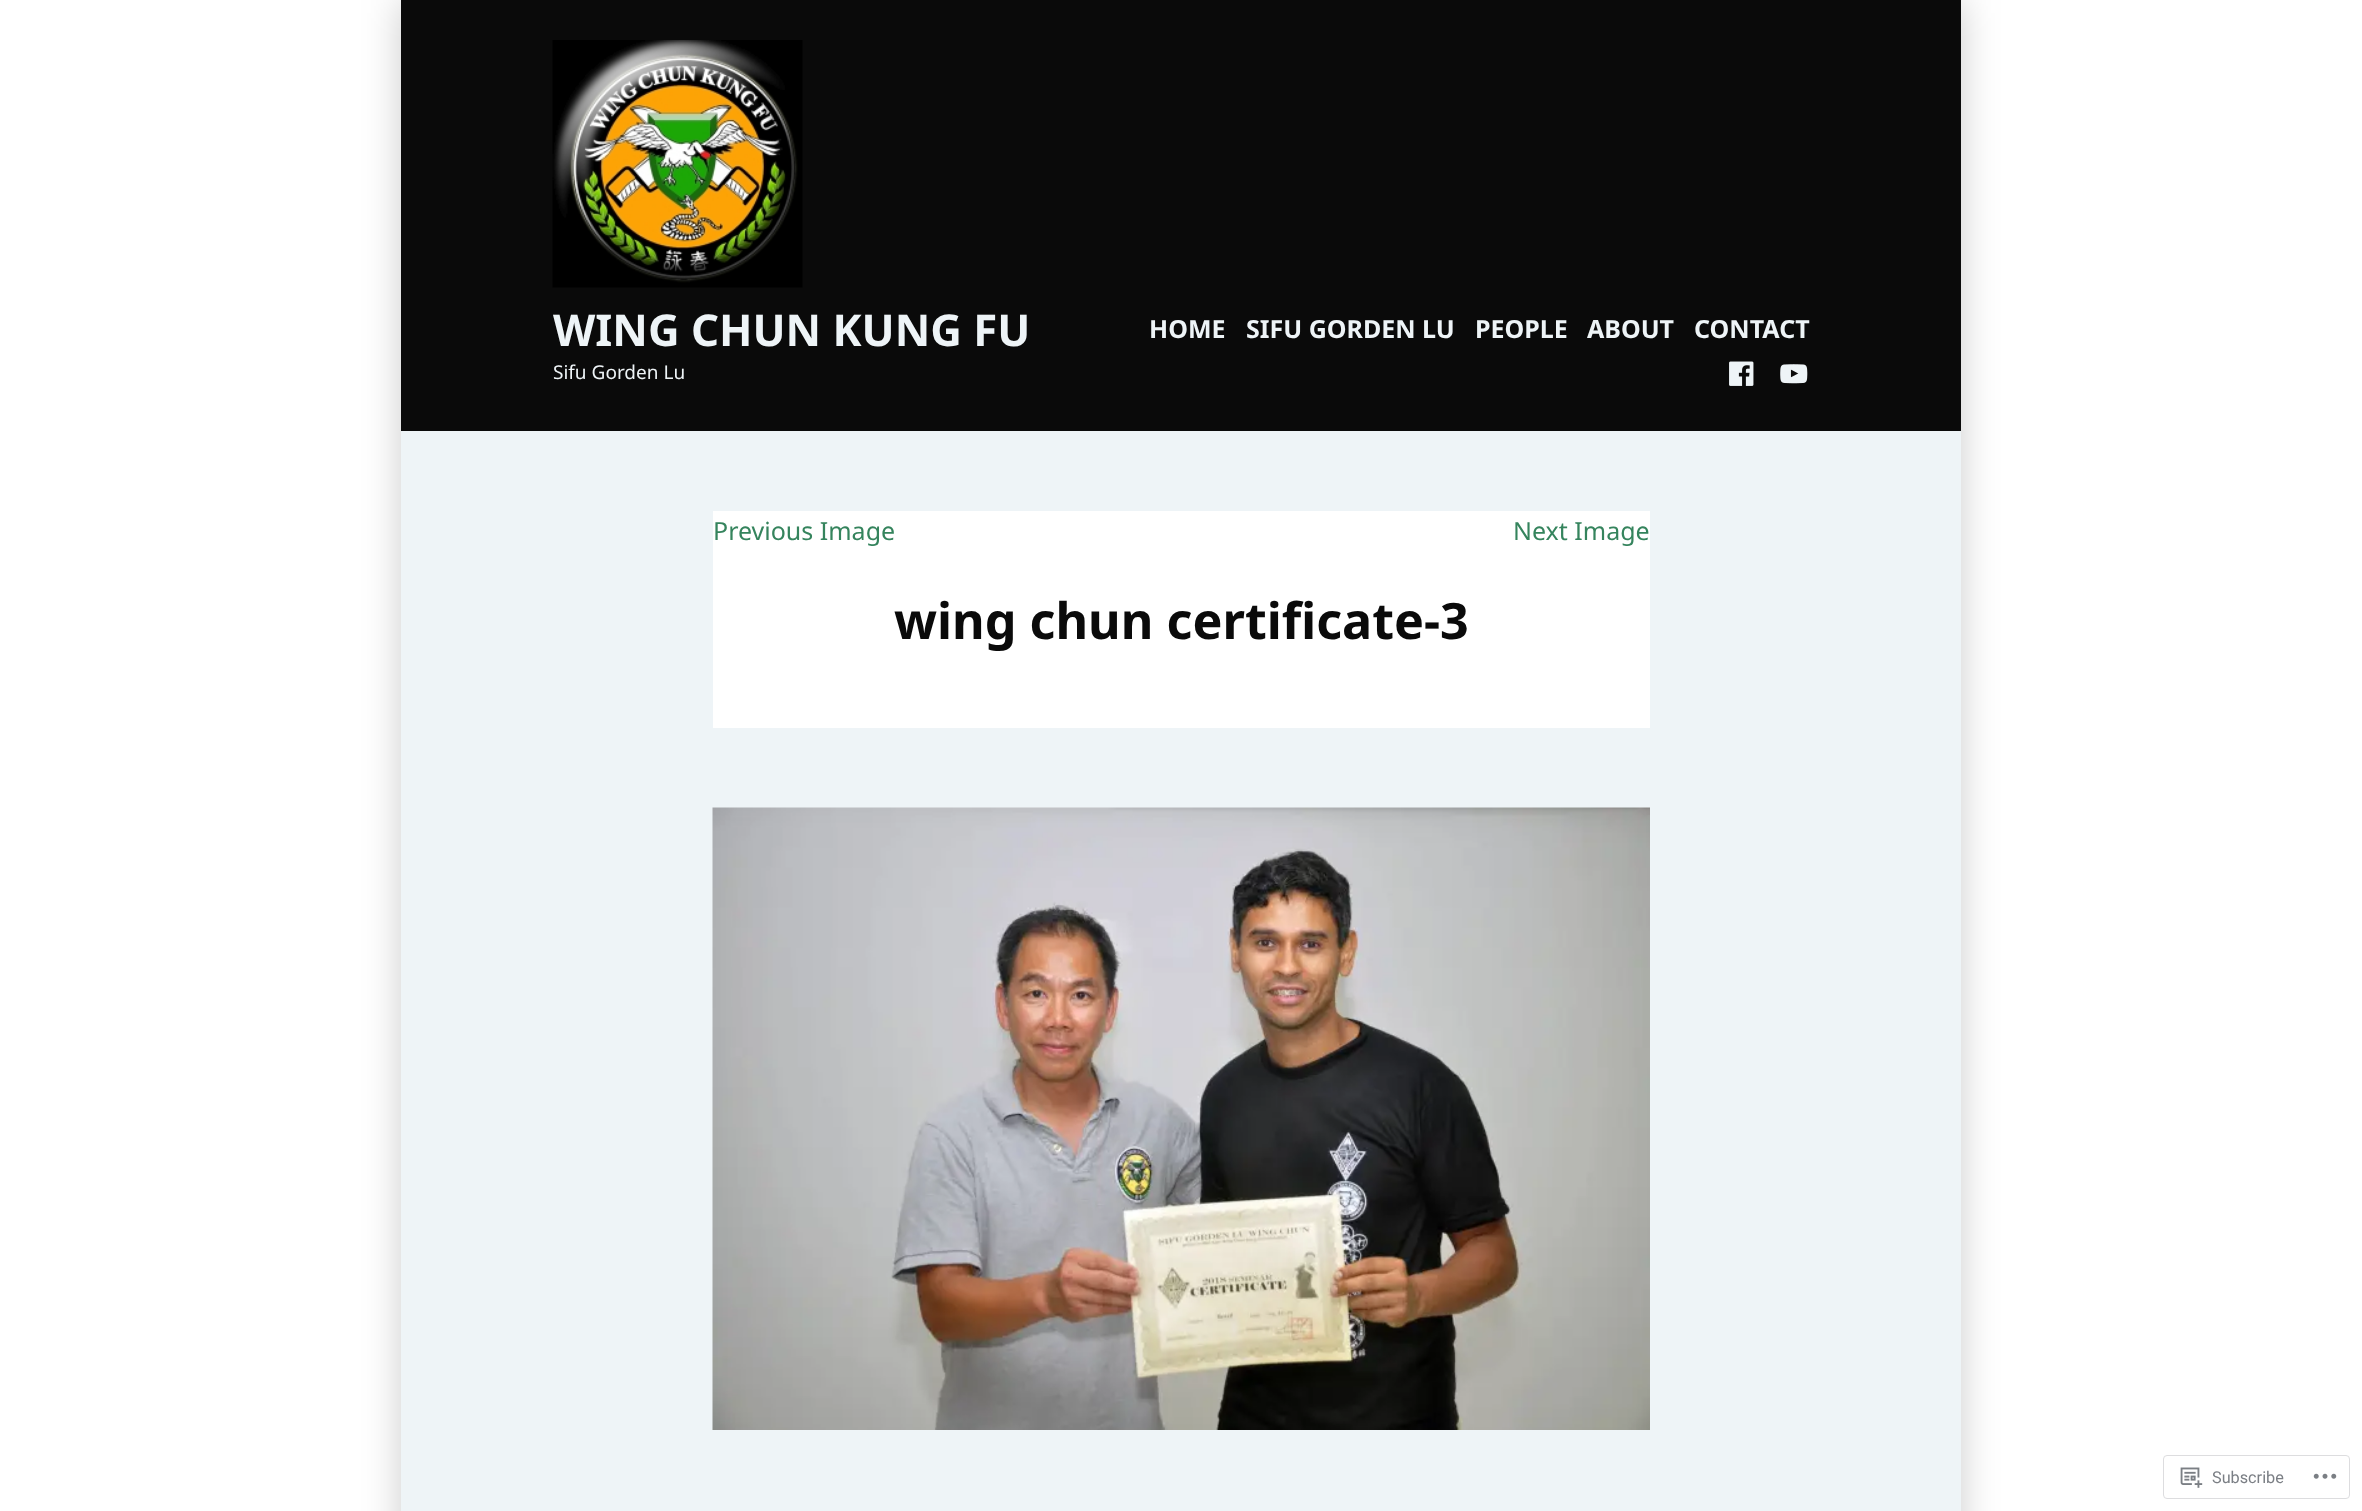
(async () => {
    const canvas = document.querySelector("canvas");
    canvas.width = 2362;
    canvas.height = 1511;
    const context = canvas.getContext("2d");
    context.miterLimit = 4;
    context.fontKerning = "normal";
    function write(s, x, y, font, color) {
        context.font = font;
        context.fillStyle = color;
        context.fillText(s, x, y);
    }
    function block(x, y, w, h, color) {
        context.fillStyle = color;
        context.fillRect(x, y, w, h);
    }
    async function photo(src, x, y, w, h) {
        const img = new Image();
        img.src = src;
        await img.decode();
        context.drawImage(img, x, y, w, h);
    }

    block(0, 0, 2362, 1511, "rgb(255, 255, 255)");
    context.fillStyle = "rgba(0, 0, 0, 0.2)";
    context.filter = "blur(19px)";
    context.beginPath();
    context.rect(401, 0, 1560, 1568);
    context.fill();
    context.filter = "none";
    block(401, 431, 1560, 1080, "rgb(238, 244, 247)");
    block(401, 0, 1560, 431, "rgb(10, 10, 10)");
    await photo("media/1.png", 552, 40, 251, 248);
    write("WING CHUN KUNG FU", 553, 346, "bold 43.75px Noto Sans", "rgb(238, 244, 247)");
    write("HOME", 1149, 338, "bold 25px Noto Sans", "rgb(238, 244, 247)");
    write("SIFU GORDEN LU", 1246, 338, "bold 25px Noto Sans", "rgb(238, 244, 247)");
    write("PEOPLE", 1475, 338, "bold 25px Noto Sans", "rgb(238, 244, 247)");
    write("ABOUT", 1587, 338, "bold 25px Noto Sans", "rgb(238, 244, 247)");
    write("CONTACT", 1694, 338, "bold 25px Noto Sans", "rgb(238, 244, 247)");
    write("Sifu Gorden Lu", 553, 379, "19px Noto Sans", "rgb(238, 244, 247)");
    await photo("media/2.png", 1729, 361, 25, 25);
    await photo("media/3.png", 1780, 364, 28, 20);
    block(713, 511, 937, 217, "rgb(255, 255, 255)");
    write("Previous Image", 713, 540, "25px Noto Sans", "rgb(53, 132, 93)");
    write("Next Image", 1513, 540, "25px Noto Sans", "rgb(53, 132, 93)");
    write("wing chun certificate-3", 894, 639, "bold 50.25px Noto Sans", "rgb(10, 10, 10)");
    await photo("media/4.png", 712, 807, 938, 623);
    context.beginPath();
    context.roundRect(2163.5, 1455.5, 186, 43, 3.5);
    context.strokeStyle = "rgb(221, 221, 223)";
    context.stroke();
    await photo("media/5.png", 2180, 1467, 23, 21);
    write("Subscribe", 2212, 1483, "16.25px Roboto", "rgb(123, 127, 133)");
    await photo("media/6.png", 2313, 1473, 24, 6);
})();
